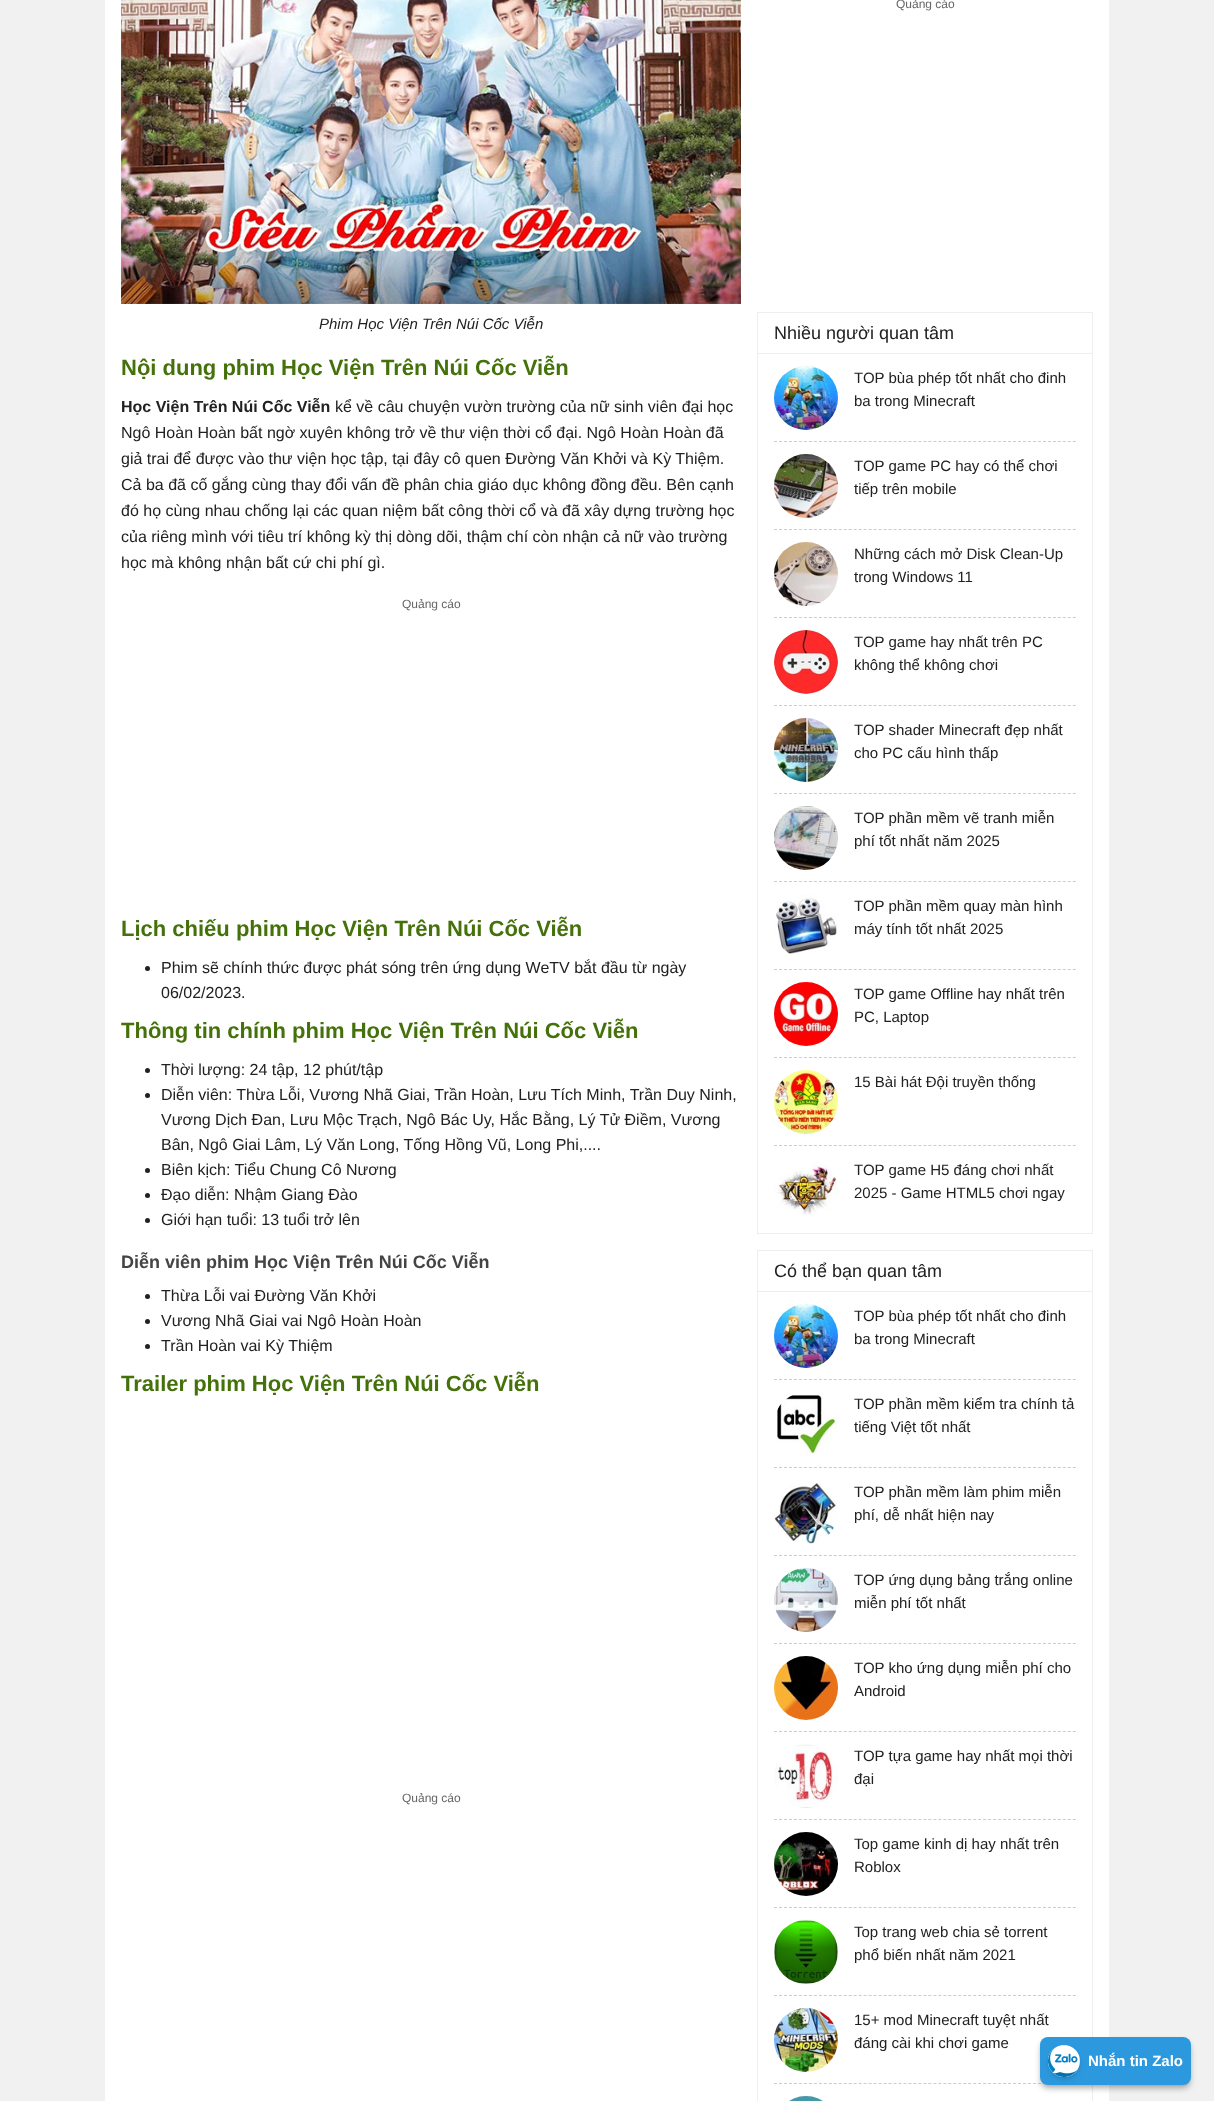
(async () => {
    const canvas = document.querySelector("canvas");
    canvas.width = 1214;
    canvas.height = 2101;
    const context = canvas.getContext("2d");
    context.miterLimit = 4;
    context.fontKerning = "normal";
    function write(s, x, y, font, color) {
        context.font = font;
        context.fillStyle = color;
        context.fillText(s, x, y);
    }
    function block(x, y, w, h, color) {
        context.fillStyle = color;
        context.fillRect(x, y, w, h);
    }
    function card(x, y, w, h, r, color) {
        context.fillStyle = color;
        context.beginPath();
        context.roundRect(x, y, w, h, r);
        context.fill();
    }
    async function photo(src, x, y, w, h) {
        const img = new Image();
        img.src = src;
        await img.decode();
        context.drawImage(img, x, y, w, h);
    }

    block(0, 0, 1214, 2101, "rgb(241, 241, 241)");
    block(105, 0, 1004, 2101, "rgb(255, 255, 255)");
    await photo("media/1.png", 121, 0, 620, 304);
    write("Phim Học Viện Trên Núi Cốc Viễn", 319, 329, "italic 15px Liberation Sans", "rgb(33, 33, 33)");
    write("Nội dung phim Học Viện Trên Núi Cốc Viễn", 121, 375, "bold 22px Liberation Sans", "rgb(69, 113, 10)");
    write("Học Viện Trên Núi Cốc Viễn", 121, 412, "bold 16px Liberation Sans", "rgb(33, 33, 33)");
    write("kể về câu chuyện vườn trường của nữ sinh viên đại học", 335, 412, "16px Liberation Sans", "rgb(33, 33, 33)");
    write("Ngô Hoàn Hoàn bất ngờ xuyên không trở về thư viện thời cổ đại. Ngô Hoàn Hoàn đã", 121, 438, "16px Liberation Sans", "rgb(33, 33, 33)");
    write("giả trai để được vào thư viện học tập, tại đây cô quen Đường Văn Khởi và Kỳ Thiệm.", 121, 464, "16px Liberation Sans", "rgb(33, 33, 33)");
    write("Cả ba đã cố gắng cùng thay đổi vấn đề phân chia giáo dục không đồng đều. Bên cạnh", 121, 490, "16px Liberation Sans", "rgb(33, 33, 33)");
    write("đó họ cùng nhau chống lại các quan niệm bất công thời cổ và đã xây dựng trường học", 121, 516, "16px Liberation Sans", "rgb(33, 33, 33)");
    write("của riêng mình với tiêu trí không kỳ thị dòng dõi, thậm chí còn nhận cả nữ vào trường", 121, 542, "16px Liberation Sans", "rgb(33, 33, 33)");
    write("học mà không nhận bất cứ chi phí gì.", 121, 568, "16px Liberation Sans", "rgb(33, 33, 33)");
    write("Quảng cáo", 402, 608, "12px Liberation Sans", "rgb(102, 102, 102)");
    write("Lịch chiếu phim Học Viện Trên Núi Cốc Viễn", 121, 936, "bold 22px Liberation Sans", "rgb(69, 113, 10)");
    context.fillStyle = "rgb(33, 33, 33)";
    context.beginPath();
    context.arc(147.5, 968.5, 2.5, 0, Math.PI * 2);
    context.fill();
    write("Phim sẽ chính thức được phát sóng trên ứng dụng WeTV bắt đầu từ ngày", 161, 973, "16px Liberation Sans", "rgb(33, 33, 33)");
    write("06/02/2023.", 161, 998, "16px Liberation Sans", "rgb(33, 33, 33)");
    write("Thông tin chính phim Học Viện Trên Núi Cốc Viễn", 121, 1038, "bold 22px Liberation Sans", "rgb(69, 113, 10)");
    context.fillStyle = "rgb(33, 33, 33)";
    context.beginPath();
    context.arc(147.5, 1070.5, 2.5, 0, Math.PI * 2);
    context.fill();
    write("Thời lượng: 24 tập, 12 phút/tập", 161, 1075, "16px Liberation Sans", "rgb(33, 33, 33)");
    context.beginPath();
    context.arc(147.5, 1095.5, 2.5, 0, Math.PI * 2);
    context.fill();
    write("Diễn viên: Thừa Lỗi, Vương Nhã Giai, Trần Hoàn, Lưu Tích Minh, Trần Duy Ninh,", 161, 1100, "16px Liberation Sans", "rgb(33, 33, 33)");
    write("Vương Dịch Đan, Lưu Mộc Trạch, Ngô Bác Uy, Hắc Bằng, Lý Tử Điềm, Vương", 161, 1125, "16px Liberation Sans", "rgb(33, 33, 33)");
    write("Bân, Ngô Giai Lâm, Lý Văn Long, Tống Hồng Vũ, Long Phi,....", 161, 1150, "16px Liberation Sans", "rgb(33, 33, 33)");
    context.beginPath();
    context.arc(147.5, 1170.5, 2.5, 0, Math.PI * 2);
    context.fill();
    write("Biên kịch: Tiểu Chung Cô Nương", 161, 1175, "16px Liberation Sans", "rgb(33, 33, 33)");
    context.beginPath();
    context.arc(147.5, 1195.5, 2.5, 0, Math.PI * 2);
    context.fill();
    write("Đạo diễn: Nhậm Giang Đào", 161, 1200, "16px Liberation Sans", "rgb(33, 33, 33)");
    context.beginPath();
    context.arc(147.5, 1220.5, 2.5, 0, Math.PI * 2);
    context.fill();
    write("Giới hạn tuổi: 13 tuổi trở lên", 161, 1225, "16px Liberation Sans", "rgb(33, 33, 33)");
    write("Diễn viên phim Học Viện Trên Núi Cốc Viễn", 121, 1268, "bold 18px Liberation Sans", "rgb(68, 68, 68)");
    context.fillStyle = "rgb(33, 33, 33)";
    context.beginPath();
    context.arc(147.5, 1296.5, 2.5, 0, Math.PI * 2);
    context.fill();
    write("Thừa Lỗi vai Đường Văn Khởi", 161, 1301, "16px Liberation Sans", "rgb(33, 33, 33)");
    context.beginPath();
    context.arc(147.5, 1321.5, 2.5, 0, Math.PI * 2);
    context.fill();
    write("Vương Nhã Giai vai Ngô Hoàn Hoàn", 161, 1326, "16px Liberation Sans", "rgb(33, 33, 33)");
    context.beginPath();
    context.arc(147.5, 1346.5, 2.5, 0, Math.PI * 2);
    context.fill();
    write("Trần Hoàn vai Kỳ Thiệm", 161, 1351, "16px Liberation Sans", "rgb(33, 33, 33)");
    write("Trailer phim Học Viện Trên Núi Cốc Viễn", 121, 1391, "bold 22px Liberation Sans", "rgb(69, 113, 10)");
    write("Quảng cáo", 402, 1802, "12px Liberation Sans", "rgb(102, 102, 102)");
    write("Quảng cáo", 896, 8, "12px Liberation Sans", "rgb(102, 102, 102)");
    context.strokeStyle = "rgb(238, 238, 238)";
    context.strokeRect(757.5, 312.5, 335, 921);
    block(758, 353, 334, 1, "rgb(238, 238, 238)");
    write("Nhiều người quan tâm", 774, 339, "18px Liberation Sans", "rgb(33, 33, 33)");
    context.beginPath();
    context.moveTo(774, 441.5);
    context.lineTo(1076, 441.5);
    context.strokeStyle = "rgb(204, 204, 204)";
    context.setLineDash([3, 1.98]);
    context.stroke();
    await photo("media/2.png", 774, 366, 64, 64);
    write("TOP bùa phép tốt nhất cho đinh", 854, 383, "15px Liberation Sans", "rgb(33, 33, 33)");
    write("ba trong Minecraft", 854, 406, "15px Liberation Sans", "rgb(33, 33, 33)");
    context.beginPath();
    context.moveTo(774, 529.5);
    context.lineTo(1076, 529.5);
    context.stroke();
    await photo("media/3.png", 774, 454, 64, 64);
    write("TOP game PC hay có thể chơi", 854, 471, "15px Liberation Sans", "rgb(33, 33, 33)");
    write("tiếp trên mobile", 854, 494, "15px Liberation Sans", "rgb(33, 33, 33)");
    context.beginPath();
    context.moveTo(774, 617.5);
    context.lineTo(1076, 617.5);
    context.stroke();
    await photo("media/4.png", 774, 542, 64, 64);
    write("Những cách mở Disk Clean-Up", 854, 559, "15px Liberation Sans", "rgb(33, 33, 33)");
    write("trong Windows 11", 854, 582, "15px Liberation Sans", "rgb(33, 33, 33)");
    context.beginPath();
    context.moveTo(774, 705.5);
    context.lineTo(1076, 705.5);
    context.stroke();
    await photo("media/5.png", 774, 630, 64, 64);
    write("TOP game hay nhất trên PC", 854, 647, "15px Liberation Sans", "rgb(33, 33, 33)");
    write("không thể không chơi", 854, 670, "15px Liberation Sans", "rgb(33, 33, 33)");
    context.beginPath();
    context.moveTo(774, 793.5);
    context.lineTo(1076, 793.5);
    context.stroke();
    await photo("media/6.png", 774, 718, 64, 64);
    write("TOP shader Minecraft đẹp nhất", 854, 735, "15px Liberation Sans", "rgb(33, 33, 33)");
    write("cho PC cấu hình thấp", 854, 758, "15px Liberation Sans", "rgb(33, 33, 33)");
    context.beginPath();
    context.moveTo(774, 881.5);
    context.lineTo(1076, 881.5);
    context.stroke();
    await photo("media/7.png", 774, 806, 64, 64);
    write("TOP phần mềm vẽ tranh miễn", 854, 823, "15px Liberation Sans", "rgb(33, 33, 33)");
    write("phí tốt nhất năm 2025", 854, 846, "15px Liberation Sans", "rgb(33, 33, 33)");
    context.beginPath();
    context.moveTo(774, 969.5);
    context.lineTo(1076, 969.5);
    context.stroke();
    await photo("media/8.png", 774, 894, 64, 60);
    write("TOP phần mềm quay màn hình", 854, 911, "15px Liberation Sans", "rgb(33, 33, 33)");
    write("máy tính tốt nhất 2025", 854, 934, "15px Liberation Sans", "rgb(33, 33, 33)");
    context.beginPath();
    context.moveTo(774, 1057.5);
    context.lineTo(1076, 1057.5);
    context.stroke();
    await photo("media/9.png", 774, 982, 64, 64);
    write("TOP game Offline hay nhất trên", 854, 999, "15px Liberation Sans", "rgb(33, 33, 33)");
    write("PC, Laptop", 854, 1022, "15px Liberation Sans", "rgb(33, 33, 33)");
    context.beginPath();
    context.moveTo(774, 1145.5);
    context.lineTo(1076, 1145.5);
    context.stroke();
    await photo("media/10.png", 774, 1070, 64, 64);
    write("15 Bài hát Đội truyền thống", 854, 1087, "15px Liberation Sans", "rgb(33, 33, 33)");
    await photo("media/11.png", 774, 1160, 64, 55);
    write("TOP game H5 đáng chơi nhất", 854, 1175, "15px Liberation Sans", "rgb(33, 33, 33)");
    write("2025 - Game HTML5 chơi ngay", 854, 1198, "15px Liberation Sans", "rgb(33, 33, 33)");
    context.strokeStyle = "rgb(238, 238, 238)";
    context.setLineDash([]);
    context.strokeRect(757.5, 1250.5, 335, 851);
    block(758, 1291, 334, 1, "rgb(238, 238, 238)");
    write("Có thể bạn quan tâm", 774, 1277, "18px Liberation Sans", "rgb(33, 33, 33)");
    context.beginPath();
    context.moveTo(774, 1379.5);
    context.lineTo(1076, 1379.5);
    context.strokeStyle = "rgb(204, 204, 204)";
    context.setLineDash([3, 1.98]);
    context.stroke();
    await photo("media/12.png", 774, 1304, 64, 64);
    write("TOP bùa phép tốt nhất cho đinh", 854, 1321, "15px Liberation Sans", "rgb(33, 33, 33)");
    write("ba trong Minecraft", 854, 1344, "15px Liberation Sans", "rgb(33, 33, 33)");
    context.beginPath();
    context.moveTo(774, 1467.5);
    context.lineTo(1076, 1467.5);
    context.stroke();
    await photo("media/13.png", 777, 1395, 61, 61);
    write("TOP phần mềm kiểm tra chính tả", 854, 1409, "15px Liberation Sans", "rgb(33, 33, 33)");
    write("tiếng Việt tốt nhất", 854, 1432, "15px Liberation Sans", "rgb(33, 33, 33)");
    context.beginPath();
    context.moveTo(774, 1555.5);
    context.lineTo(1076, 1555.5);
    context.stroke();
    await photo("media/14.png", 774, 1480, 64, 64);
    write("TOP phần mềm làm phim miễn", 854, 1497, "15px Liberation Sans", "rgb(33, 33, 33)");
    write("phí, dễ nhất hiện nay", 854, 1520, "15px Liberation Sans", "rgb(33, 33, 33)");
    context.beginPath();
    context.moveTo(774, 1643.5);
    context.lineTo(1076, 1643.5);
    context.stroke();
    await photo("media/15.png", 774, 1568, 64, 64);
    write("TOP ứng dụng bảng trắng online", 854, 1585, "15px Liberation Sans", "rgb(33, 33, 33)");
    write("miễn phí tốt nhất", 854, 1608, "15px Liberation Sans", "rgb(33, 33, 33)");
    context.beginPath();
    context.moveTo(774, 1731.5);
    context.lineTo(1076, 1731.5);
    context.stroke();
    await photo("media/16.png", 774, 1656, 64, 64);
    write("TOP kho ứng dụng miễn phí cho", 854, 1673, "15px Liberation Sans", "rgb(33, 33, 33)");
    write("Android", 854, 1696, "15px Liberation Sans", "rgb(33, 33, 33)");
    context.beginPath();
    context.moveTo(774, 1819.5);
    context.lineTo(1076, 1819.5);
    context.stroke();
    await photo("media/17.png", 774, 1744, 64, 64);
    write("TOP tựa game hay nhất mọi thời", 854, 1761, "15px Liberation Sans", "rgb(33, 33, 33)");
    write("đại", 854, 1784, "15px Liberation Sans", "rgb(33, 33, 33)");
    context.beginPath();
    context.moveTo(774, 1907.5);
    context.lineTo(1076, 1907.5);
    context.stroke();
    await photo("media/18.png", 774, 1832, 64, 64);
    write("Top game kinh dị hay nhất trên", 854, 1849, "15px Liberation Sans", "rgb(33, 33, 33)");
    write("Roblox", 854, 1872, "15px Liberation Sans", "rgb(33, 33, 33)");
    context.beginPath();
    context.moveTo(774, 1995.5);
    context.lineTo(1076, 1995.5);
    context.stroke();
    await photo("media/19.png", 774, 1920, 64, 64);
    write("Top trang web chia sẻ torrent", 854, 1937, "15px Liberation Sans", "rgb(33, 33, 33)");
    write("phổ biến nhất năm 2021", 854, 1960, "15px Liberation Sans", "rgb(33, 33, 33)");
    context.beginPath();
    context.moveTo(774, 2083.5);
    context.lineTo(1076, 2083.5);
    context.stroke();
    await photo("media/20.png", 774, 2008, 64, 64);
    write("15+ mod Minecraft tuyệt nhất", 854, 2025, "15px Liberation Sans", "rgb(33, 33, 33)");
    write("đáng cài khi chơi game", 854, 2048, "15px Liberation Sans", "rgb(33, 33, 33)");
    await photo("media/21.png", 789, 2096, 34, 5);
    context.fillStyle = "rgba(0, 0, 0, 0.1)";
    context.filter = "blur(2px)";
    context.beginPath();
    context.roundRect(1042, 2041, 147, 44, 6);
    context.fill();
    context.filter = "none";
    context.fillStyle = "rgba(0, 0, 0, 0.31)";
    context.filter = "blur(3px)";
    context.beginPath();
    context.roundRect(1041, 2042, 149, 46, 7);
    context.fill();
    context.filter = "none";
    card(1040, 2037, 151, 48, 8, "rgb(44, 153, 222)");
    context.fillStyle = "rgba(0, 0, 0, 0.1)";
    context.filter = "blur(2px)";
    context.beginPath();
    context.roundRect(1050, 2049, 28, 28, 14);
    context.fill();
    context.filter = "none";
    context.filter = "blur(3px)";
    context.beginPath();
    context.roundRect(1049, 2050, 30, 30, 15);
    context.fill();
    context.filter = "none";
    context.fillStyle = "rgb(255, 255, 255)";
    context.beginPath();
    context.arc(1064, 2061, 16, 0, Math.PI * 2);
    context.fill();
    await photo("media/22.png", 1048, 2045, 32, 32);
    write("Nhắn tin Zalo", 1088, 2066, "bold 15px Liberation Sans", "rgb(255, 255, 255)");
})();
